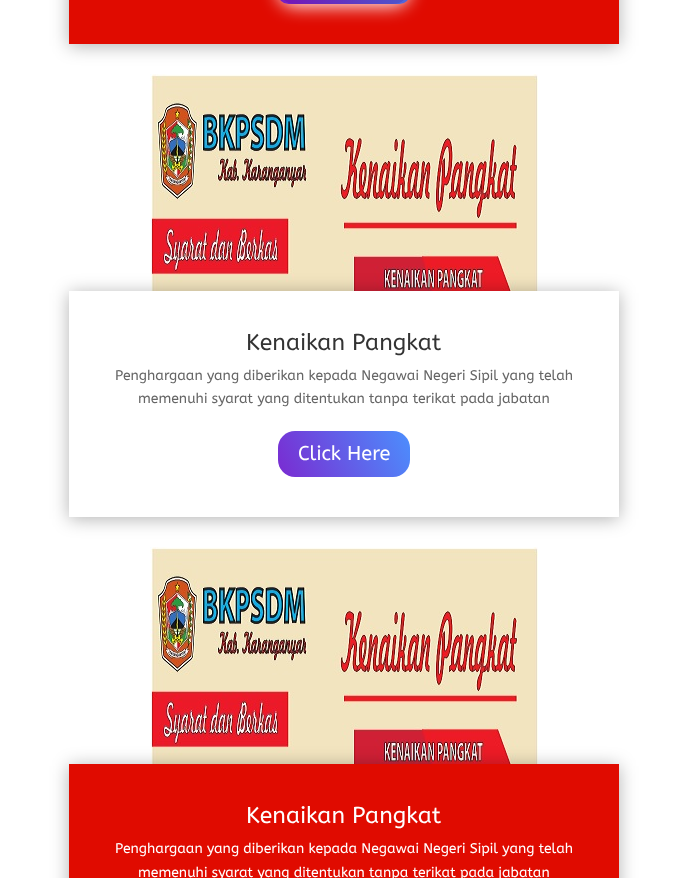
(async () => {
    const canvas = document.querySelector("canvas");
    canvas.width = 688;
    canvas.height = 878;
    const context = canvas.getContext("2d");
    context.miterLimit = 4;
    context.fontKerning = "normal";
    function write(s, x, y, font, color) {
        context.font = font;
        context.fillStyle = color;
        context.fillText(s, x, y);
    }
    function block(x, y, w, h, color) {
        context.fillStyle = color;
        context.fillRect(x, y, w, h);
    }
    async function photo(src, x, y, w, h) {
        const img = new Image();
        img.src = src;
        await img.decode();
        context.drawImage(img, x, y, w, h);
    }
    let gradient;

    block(0, 0, 688, 878, "rgb(255, 255, 255)");
    context.fillStyle = "rgba(0, 0, 0, 0.3)";
    context.filter = "blur(9px)";
    context.beginPath();
    context.rect(69, -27, 550, 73);
    context.fill();
    context.filter = "none";
    block(69, 0, 550, 44, "rgb(224, 11, 0)");
    context.save();
    context.beginPath();
    context.moveTo(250, 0);
    context.lineTo(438, 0);
    context.lineTo(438, 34);
    context.lineTo(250, 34);
    context.closePath();
    context.moveTo(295, -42);
    context.lineTo(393, -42);
    context.bezierCurveTo(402.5, -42, 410, -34.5, 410, -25);
    context.lineTo(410, -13);
    context.bezierCurveTo(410, -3.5, 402.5, 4, 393, 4);
    context.lineTo(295, 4);
    context.bezierCurveTo(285.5, 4, 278, -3.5, 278, -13);
    context.lineTo(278, -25);
    context.bezierCurveTo(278, -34.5, 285.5, -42, 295, -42);
    context.closePath();
    context.clip("evenodd");
    context.fillStyle = "rgb(255, 255, 255)";
    context.filter = "blur(9px)";
    context.beginPath();
    context.roundRect(278, -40, 132, 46, 17);
    context.fill();
    context.filter = "none";
    context.restore();
    gradient = context.createLinearGradient(281, 10, 407, -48);
    gradient.addColorStop(0, "rgba(106, 17, 203, 0.89)");
    gradient.addColorStop(1, "rgba(37, 117, 252, 0.82)");
    context.fillStyle = gradient;
    context.beginPath();
    context.roundRect(278, -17, 132, 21, 17);
    context.fill();
    await photo("media/1.png", 150, 74, 388, 217);
    context.save();
    context.beginPath();
    context.moveTo(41, 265);
    context.lineTo(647, 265);
    context.lineTo(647, 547);
    context.lineTo(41, 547);
    context.closePath();
    context.moveTo(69, 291);
    context.lineTo(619, 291);
    context.lineTo(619, 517);
    context.lineTo(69, 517);
    context.closePath();
    context.clip("evenodd");
    context.fillStyle = "rgba(0, 0, 0, 0.3)";
    context.filter = "blur(9px)";
    context.beginPath();
    context.rect(69, 293, 550, 226);
    context.fill();
    context.filter = "none";
    context.restore();
    write("Kenaikan Pangkat", 246, 350, "23px ABeeZee", "rgb(51, 51, 51)");
    write("Penghargaan yang diberikan kepada Negawai Negeri Sipil yang telah", 115, 380, "14px ABeeZee", "rgb(102, 102, 102)");
    write("memenuhi syarat yang ditentukan tanpa terikat pada jabatan", 138, 403, "14px ABeeZee", "rgb(102, 102, 102)");
    gradient = context.createLinearGradient(281, 483, 407, 425);
    gradient.addColorStop(0, "rgb(122, 43, 209)");
    gradient.addColorStop(1, "rgb(76, 142, 253)");
    context.fillStyle = gradient;
    context.beginPath();
    context.roundRect(278, 431, 132, 46, 17);
    context.fill();
    write("Click Here", 298, 460, "20px ABeeZee", "rgb(255, 255, 255)");
    await photo("media/1.png", 150, 547, 388, 217);
    context.fillStyle = "rgba(0, 0, 0, 0.3)";
    context.filter = "blur(9px)";
    context.beginPath();
    context.rect(69, 766, 550, 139);
    context.fill();
    context.filter = "none";
    block(69, 764, 550, 114, "rgb(224, 11, 0)");
    write("Kenaikan Pangkat", 246, 823, "23px ABeeZee", "rgb(255, 255, 255)");
    write("Penghargaan yang diberikan kepada Negawai Negeri Sipil yang telah", 115, 853, "14px ABeeZee", "rgb(255, 255, 255)");
    write("memenuhi syarat yang ditentukan tanpa terikat pada jabatan", 138, 877, "14px ABeeZee", "rgb(255, 255, 255)");
})();
